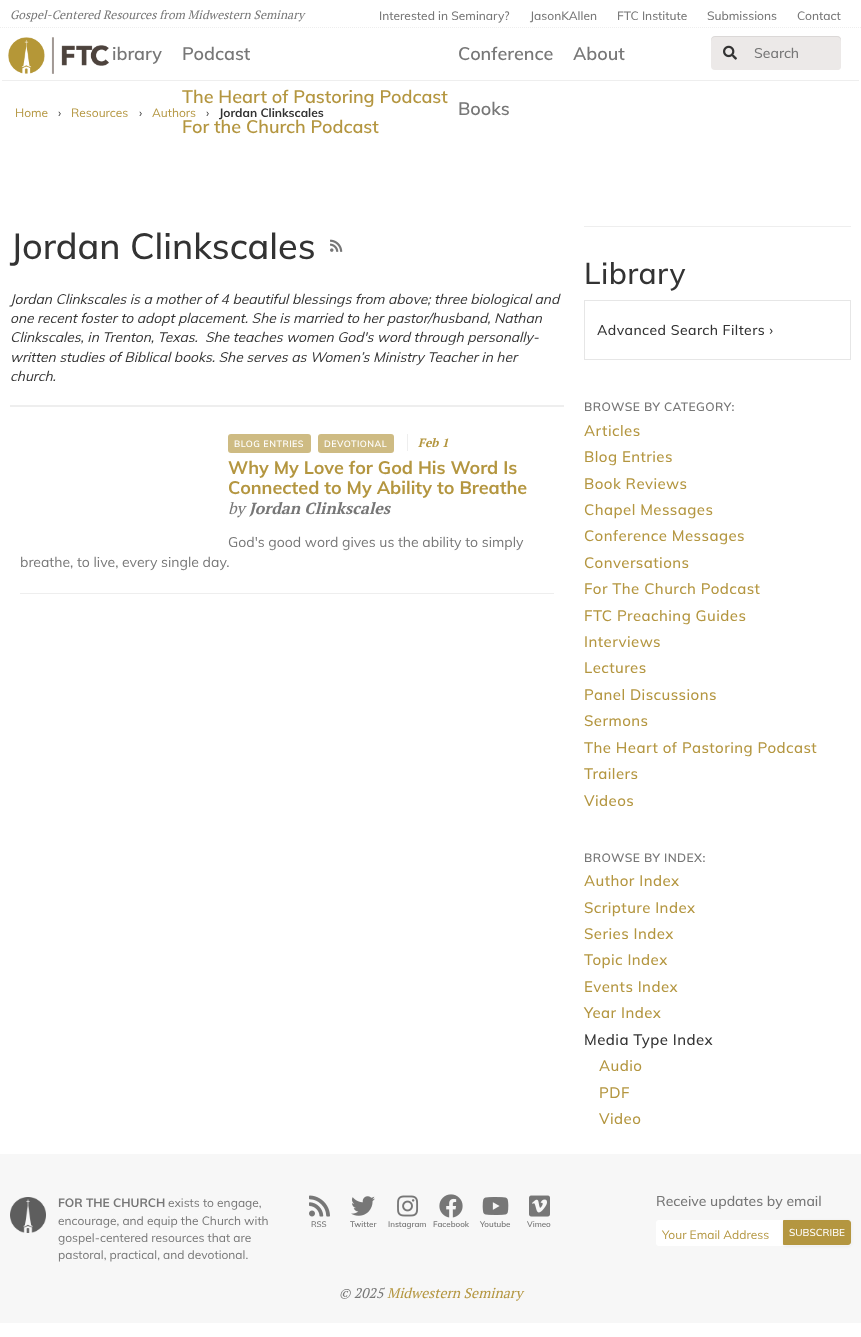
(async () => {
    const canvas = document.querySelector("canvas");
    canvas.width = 861;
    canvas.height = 1337;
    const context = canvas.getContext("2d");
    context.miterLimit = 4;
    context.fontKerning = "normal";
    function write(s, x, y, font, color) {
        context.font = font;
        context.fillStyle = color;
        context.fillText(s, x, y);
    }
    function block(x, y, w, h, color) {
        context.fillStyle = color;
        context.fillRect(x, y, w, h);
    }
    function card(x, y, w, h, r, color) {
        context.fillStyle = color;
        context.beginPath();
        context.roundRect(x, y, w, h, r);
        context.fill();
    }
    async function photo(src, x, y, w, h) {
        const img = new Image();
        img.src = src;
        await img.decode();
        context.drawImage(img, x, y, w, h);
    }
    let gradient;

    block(0, 0, 861, 1337, "rgb(255, 255, 255)");
    context.beginPath();
    context.moveTo(0, 27.5);
    context.lineTo(861, 27.5);
    context.strokeStyle = "rgb(238, 238, 238)";
    context.setLineDash([1, 1]);
    context.stroke();
    write("Gospel-Centered Resources from Midwestern Seminary", 10, 19, "italic 12px PT Serif", "rgb(119, 119, 119)");
    write("Interested in Seminary?", 379, 20, "500 12px Muli", "rgb(119, 119, 119)");
    write("JasonKAllen", 530, 20, "500 12px Muli", "rgb(119, 119, 119)");
    write("FTC Institute", 617, 20, "500 12px Muli", "rgb(119, 119, 119)");
    write("Submissions", 707, 20, "500 12px Muli", "rgb(119, 119, 119)");
    write("Contact", 797, 20, "500 12px Muli", "rgb(119, 119, 119)");
    await photo("media/1.png", 8, 37, 101, 37);
    write("ibrary", 112, 60, "600 18px Muli", "rgb(119, 119, 119)");
    write("Podcast", 182, 60, "600 18px Muli", "rgb(119, 119, 119)");
    write("The Heart of Pastoring Podcast", 182, 103, "600 18px Muli", "rgb(180, 150, 64)");
    write("For the Church Podcast", 182, 133, "600 18px Muli", "rgb(180, 150, 64)");
    write("Conference", 458, 60, "600 18px Muli", "rgb(119, 119, 119)");
    write("About", 573, 60, "600 18px Muli", "rgb(119, 119, 119)");
    write("Books", 458, 115, "600 18px Muli", "rgb(119, 119, 119)");
    card(711, 36, 130, 34, 4, "rgb(236, 233, 232)");
    await photo("media/2.png", 723, 45, 14, 15);
    gradient = context.createLinearGradient(711, 53, 841, 53);
    gradient.addColorStop(0.2, "rgba(236, 233, 232, 0)");
    gradient.addColorStop(0.21, "rgb(236, 233, 232)");
    context.fillStyle = gradient;
    context.beginPath();
    context.roundRect(711, 36, 130, 34, 4);
    context.fill();
    context.fillStyle = "rgba(0, 0, 0, 0.07)";
    context.beginPath();
    context.moveTo(715, 37);
    context.lineTo(837, 37);
    context.bezierCurveTo(839, 37, 841, 39, 841, 41);
    context.lineTo(841, 40);
    context.bezierCurveTo(841, 38, 839, 36, 837, 36);
    context.lineTo(715, 36);
    context.bezierCurveTo(713, 36, 711, 38, 711, 40);
    context.lineTo(711, 41);
    context.bezierCurveTo(711, 39, 713, 37, 715, 37);
    context.closePath();
    context.fill();
    write("Search", 754, 58, "500 14px Muli", "rgb(119, 119, 119)");
    block(2, 80, 857, 1, "rgb(238, 238, 238)");
    write("Home", 15, 117, "12px Muli", "rgb(180, 150, 64)");
    write("›", 58, 117, "12px Muli", "rgb(51, 51, 51)");
    write("Resources", 71, 117, "12px Muli", "rgb(180, 150, 64)");
    write("›", 139, 117, "12px Muli", "rgb(51, 51, 51)");
    write("Authors", 152, 117, "12px Muli", "rgb(180, 150, 64)");
    write("›", 206, 117, "12px Muli", "rgb(51, 51, 51)");
    write("Jordan Clinkscales", 219, 117, "bold 12px Muli", "rgb(51, 51, 51)");
    write("Jordan Clinkscales", 10, 259, "500 36px Muli", "rgb(51, 51, 51)");
    await photo("media/3.png", 330, 239, 13, 13);
    block(10, 405, 554, 2, "rgb(238, 238, 238)");
    write("Jordan Clinkscales is a mother of 4 beautiful blessings from above; three biological and", 10, 304, "italic 13.8px Muli", "rgb(51, 51, 51)");
    write("one recent foster to adopt placement. She is married to her pastor/husband, Nathan", 10, 323, "italic 13.8px Muli", "rgb(51, 51, 51)");
    write("Clinkscales, in Trenton, Texas.  She teaches women God's word through personally-", 10, 342, "italic 13.8px Muli", "rgb(51, 51, 51)");
    write("written studies of Biblical books. She serves as Women’s Ministry Teacher in her", 10, 362, "italic 13.8px Muli", "rgb(51, 51, 51)");
    write("church.", 10, 381, "italic 13.8px Muli", "rgb(51, 51, 51)");
    block(20, 593, 534, 1, "rgb(238, 238, 238)");
    card(228, 434, 83, 19, 3, "rgb(206, 187, 131)");
    context.letterSpacing = "0.5px";
    write("BLOG ENTRIES", 234, 447, "600 9px Muli", "rgb(255, 255, 255)");
    card(318, 434, 76, 19, 3, "rgb(206, 187, 131)");
    write("DEVOTIONAL", 324, 447, "600 9px Muli", "rgb(255, 255, 255)");
    block(407, 434, 1, 17, "rgb(238, 238, 238)");
    context.letterSpacing = "0px";
    write("Feb 1", 418, 447, "italic bold 12px PT Serif", "rgb(180, 150, 64)");
    write("Why My Love for God His Word Is", 228, 474, "bold 18px Muli", "rgb(180, 150, 64)");
    write("Connected to My Ability to Breathe", 228, 494, "bold 18px Muli", "rgb(180, 150, 64)");
    write("by", 228, 514, "italic 16px PT Serif", "rgb(119, 119, 119)");
    write("Jordan Clinkscales", 249, 514, "italic bold 16px PT Serif", "rgb(119, 119, 119)");
    write("God's good word gives us the ability to simply", 228, 547, "14px Muli", "rgb(119, 119, 119)");
    write("breathe, to live, every single day.", 20, 567, "14px Muli", "rgb(119, 119, 119)");
    block(584, 226, 267, 1, "rgb(238, 238, 238)");
    context.letterSpacing = "0.45px";
    write("Library", 584, 284, "500 30px Muli", "rgb(51, 51, 51)");
    context.strokeStyle = "rgb(230, 230, 230)";
    context.setLineDash([]);
    context.strokeRect(584.5, 300.5, 266, 59);
    write("Advanced Search Filters ›", 597, 335, "500 14px Muli", "rgb(51, 51, 51)");
    write("BROWSE BY CATEGORY:", 584, 411, "600 12px Muli", "rgb(119, 119, 119)");
    write("Articles", 584, 436, "500 15px Muli", "rgb(180, 150, 64)");
    write("Blog Entries", 584, 462, "500 15px Muli", "rgb(180, 150, 64)");
    write("Book Reviews", 584, 489, "500 15px Muli", "rgb(180, 150, 64)");
    write("Chapel Messages", 584, 515, "500 15px Muli", "rgb(180, 150, 64)");
    write("Conference Messages", 584, 541, "500 15px Muli", "rgb(180, 150, 64)");
    write("Conversations", 584, 568, "500 15px Muli", "rgb(180, 150, 64)");
    write("For The Church Podcast", 584, 594, "500 15px Muli", "rgb(180, 150, 64)");
    write("FTC Preaching Guides", 584, 621, "500 15px Muli", "rgb(180, 150, 64)");
    write("Interviews", 584, 647, "500 15px Muli", "rgb(180, 150, 64)");
    write("Lectures", 584, 673, "500 15px Muli", "rgb(180, 150, 64)");
    write("Panel Discussions", 584, 700, "500 15px Muli", "rgb(180, 150, 64)");
    write("Sermons", 584, 726, "500 15px Muli", "rgb(180, 150, 64)");
    write("The Heart of Pastoring Podcast", 584, 753, "500 15px Muli", "rgb(180, 150, 64)");
    write("Trailers", 584, 779, "500 15px Muli", "rgb(180, 150, 64)");
    write("Videos", 584, 806, "500 15px Muli", "rgb(180, 150, 64)");
    write("BROWSE BY INDEX:", 584, 862, "600 12px Muli", "rgb(119, 119, 119)");
    write("Author Index", 584, 886, "500 15px Muli", "rgb(180, 150, 64)");
    write("Scripture Index", 584, 913, "500 15px Muli", "rgb(180, 150, 64)");
    write("Series Index", 584, 939, "500 15px Muli", "rgb(180, 150, 64)");
    write("Topic Index", 584, 965, "500 15px Muli", "rgb(180, 150, 64)");
    write("Events Index", 584, 992, "500 15px Muli", "rgb(180, 150, 64)");
    write("Year Index", 584, 1018, "500 15px Muli", "rgb(180, 150, 64)");
    write("Media Type Index", 584, 1045, "500 15px Muli", "rgb(51, 51, 51)");
    write("Audio", 599, 1071, "500 15px Muli", "rgb(180, 150, 64)");
    write("PDF", 599, 1098, "500 15px Muli", "rgb(180, 150, 64)");
    write("Video", 599, 1124, "500 15px Muli", "rgb(180, 150, 64)");
    block(0, 1154, 861, 169, "rgb(247, 247, 247)");
    await photo("media/4.png", 10, 1197, 36, 36);
    context.letterSpacing = "0px";
    write("FOR THE CHURCH", 58, 1207, "bold 12px Muli", "rgb(119, 119, 119)");
    write("exists to engage,", 168, 1207, "12px Muli", "rgb(119, 119, 119)");
    write("encourage, and equip the Church with", 58, 1225, "12px Muli", "rgb(119, 119, 119)");
    write("gospel-centered resources that are", 58, 1242, "12px Muli", "rgb(119, 119, 119)");
    write("pastoral, practical, and devotional.", 58, 1259, "12px Muli", "rgb(119, 119, 119)");
    await photo("media/5.png", 309, 1195, 21, 22);
    write("RSS", 311, 1227, "600 8px Muli", "rgb(119, 119, 119)");
    await photo("media/6.png", 351, 1196, 24, 20);
    write("Twitter", 350, 1227, "600 8px Muli", "rgb(119, 119, 119)");
    await photo("media/7.png", 397, 1195, 22, 22);
    write("Instagram", 388, 1227, "600 8px Muli", "rgb(119, 119, 119)");
    await photo("media/8.png", 439, 1194, 24, 24);
    write("Facebook", 433, 1227, "600 8px Muli", "rgb(119, 119, 119)");
    await photo("media/9.png", 482, 1197, 27, 18);
    write("Youtube", 480, 1227, "600 8px Muli", "rgb(119, 119, 119)");
    await photo("media/10.png", 529, 1195, 21, 22);
    write("Vimeo", 527, 1227, "600 8px Muli", "rgb(119, 119, 119)");
    write("Receive updates by email", 656, 1206, "500 14px Muli", "rgb(119, 119, 119)");
    card(656, 1220, 195, 26, 3, "rgb(255, 255, 255)");
    write("Your Email Address", 662, 1239, "12px Muli", "rgb(180, 150, 64)");
    context.fillStyle = "rgba(0, 0, 0, 0.08)";
    context.filter = "blur(1.5px)";
    context.beginPath();
    context.roundRect(783, 1221, 68, 25, 3);
    context.fill();
    context.filter = "none";
    context.fillStyle = "rgb(180, 150, 64)";
    context.beginPath();
    context.roundRect(783.5, 1220.5, 67, 24, [0, 2.5, 2.5, 0]);
    context.fill();
    context.strokeStyle = "rgb(180, 150, 64)";
    context.stroke();
    write("SUBSCRIBE", 789, 1236, "500 10px Muli", "rgb(255, 255, 255)");
    write("© 2025", 339, 1298, "italic 14px PT Serif", "rgb(119, 119, 119)");
    write("Midwestern Seminary", 387, 1298, "italic 14px PT Serif", "rgb(180, 150, 64)");
})();
